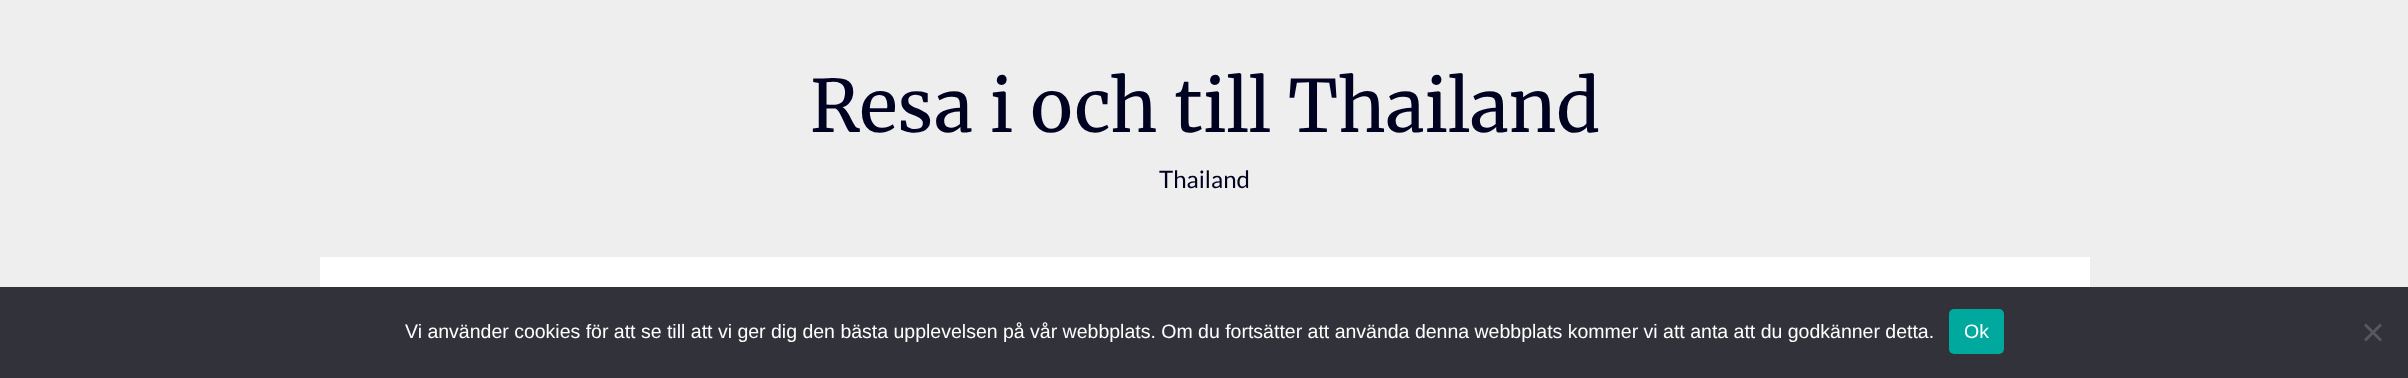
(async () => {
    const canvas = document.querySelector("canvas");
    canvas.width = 2408;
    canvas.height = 378;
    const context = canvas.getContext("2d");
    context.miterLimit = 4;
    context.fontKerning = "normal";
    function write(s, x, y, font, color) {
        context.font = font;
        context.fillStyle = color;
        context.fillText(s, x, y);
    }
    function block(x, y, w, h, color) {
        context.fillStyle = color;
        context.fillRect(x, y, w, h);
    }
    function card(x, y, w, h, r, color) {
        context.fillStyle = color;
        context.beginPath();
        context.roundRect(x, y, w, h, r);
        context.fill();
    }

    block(0, 0, 2408, 378, "rgb(238, 238, 238)");
    write("Resa i och till Thailand", 810, 132, "72px Merriweather", "rgb(0, 2, 34)");
    write("Thailand", 1159, 188, "24px Lato", "rgb(0, 2, 34)");
    block(320, 257, 1770, 30, "rgb(255, 255, 255)");
    block(0, 287, 2408, 91, "rgb(50, 50, 58)");
    write("Vi använder cookies för att se till att vi ger dig den bästa upplevelsen på vår webbplats. Om du fortsätter att använda denna webbplats kommer vi att anta att du godkänner detta.", 405, 338, "19.5px Liberation Sans", "rgb(255, 255, 255)");
    card(1949, 309, 55, 45, 5, "rgb(0, 169, 157)");
    write("Ok", 1964, 338, "19.5px Liberation Sans", "rgb(255, 255, 255)");
    context.fillStyle = "rgb(89, 89, 93)";
    context.beginPath();
    context.moveTo(2380, 323.5);
    context.lineTo(2382, 325.5);
    context.lineTo(2366, 341.5);
    context.lineTo(2364, 339.5);
    context.closePath();
    context.fill();
    context.beginPath();
    context.moveTo(2364, 325.5);
    context.lineTo(2366, 323.5);
    context.lineTo(2382, 339.5);
    context.lineTo(2380, 341.5);
    context.closePath();
    context.fill();
})();
